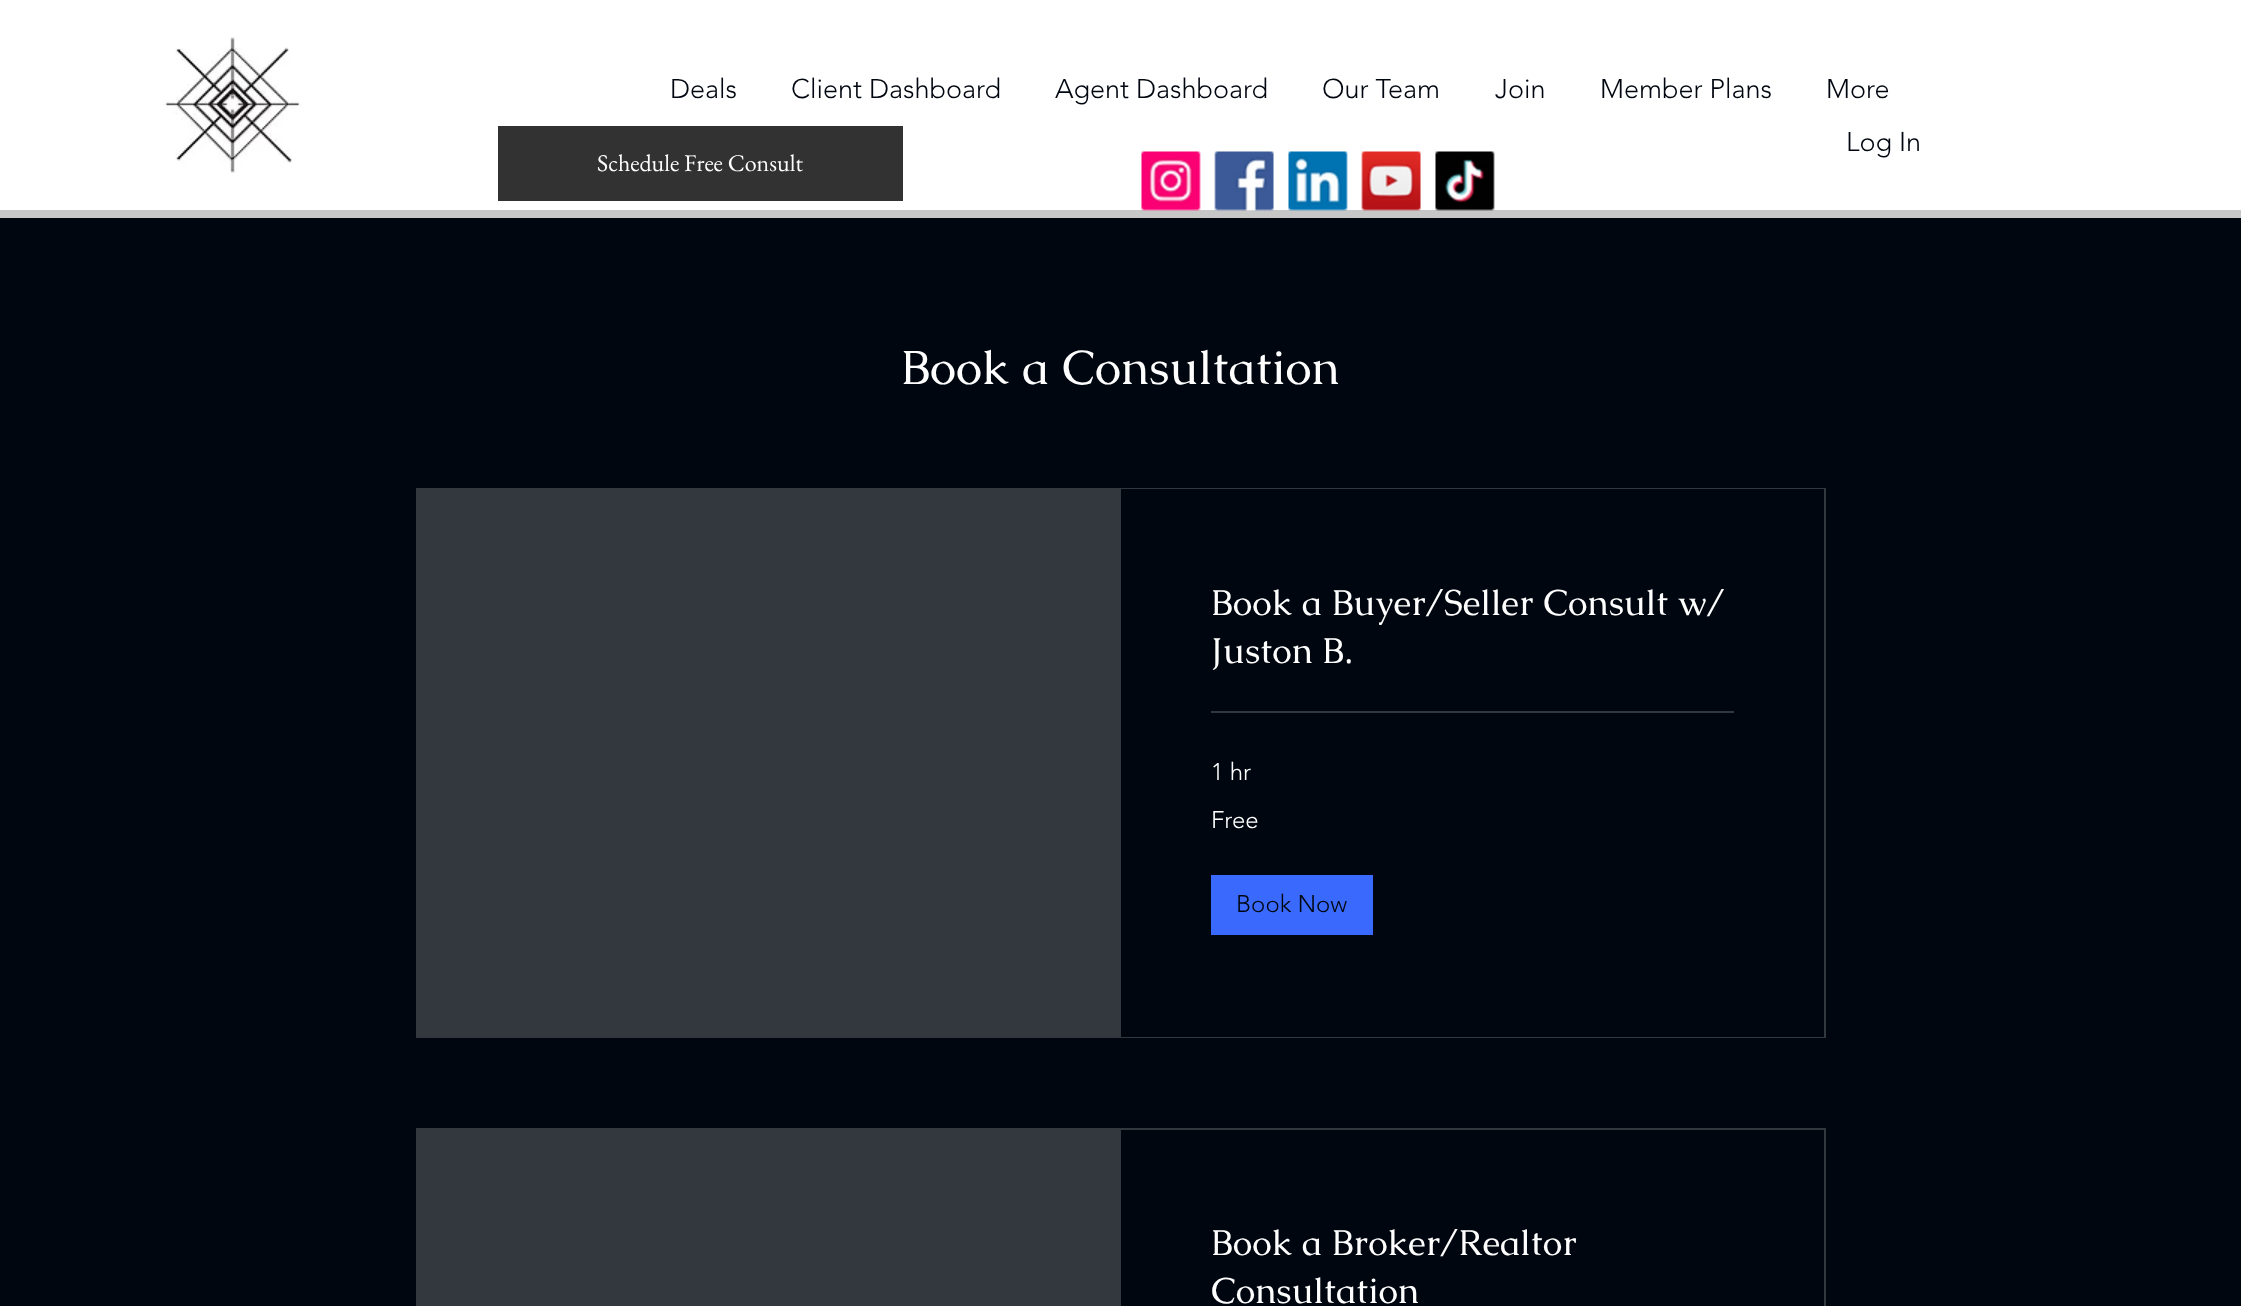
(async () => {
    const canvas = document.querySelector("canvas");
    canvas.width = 2241;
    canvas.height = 1306;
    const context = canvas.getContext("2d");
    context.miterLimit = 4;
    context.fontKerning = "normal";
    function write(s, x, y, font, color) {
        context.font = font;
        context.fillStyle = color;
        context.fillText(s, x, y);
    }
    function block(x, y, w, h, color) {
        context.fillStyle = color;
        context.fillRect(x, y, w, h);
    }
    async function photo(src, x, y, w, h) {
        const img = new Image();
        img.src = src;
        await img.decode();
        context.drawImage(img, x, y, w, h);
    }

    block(0, 0, 2241, 1306, "rgb(0, 6, 15)");
    block(0, 0, 2241, 210, "rgb(255, 255, 255)");
    await photo("media/1.png", 163, 37, 138, 136);
    write("Deals", 670, 98, "300 27px 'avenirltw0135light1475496'", "rgb(0, 6, 15)");
    write("Client Dashboard", 791, 98, "300 27px 'avenirltw0135light1475496'", "rgb(0, 6, 15)");
    write("Agent Dashboard", 1055, 98, "300 27px 'avenirltw0135light1475496'", "rgb(0, 6, 15)");
    write("Our Team", 1322, 98, "300 27px 'avenirltw0135light1475496'", "rgb(0, 6, 15)");
    write("Join", 1495, 98, "300 27px 'avenirltw0135light1475496'", "rgb(0, 6, 15)");
    write("Member Plans", 1600, 98, "300 27px 'avenirltw0135light1475496'", "rgb(0, 6, 15)");
    write("More", 1826, 98, "300 27px 'avenirltw0135light1475496'", "rgb(0, 6, 15)");
    write("Log In", 1846, 151, "300 27px 'avenirltw0135light1475496'", "rgb(0, 6, 15)");
    block(498, 126, 405, 75, "rgb(50, 50, 50)");
    write("Schedule Free Consult", 597, 171, "24px EB Garamond", "rgb(255, 255, 255)");
    block(0, 210, 2241, 8, "rgb(199, 199, 199)");
    await photo("media/2.png", 1141, 151, 60, 60);
    await photo("media/3.png", 1214, 151, 60, 60);
    await photo("media/4.png", 1288, 151, 60, 60);
    await photo("media/5.png", 1361, 151, 60, 60);
    await photo("media/6.png", 1435, 151, 60, 60);
    write("Book a Consultation", 901, 384, "48px Caudex", "rgb(255, 255, 255)");
    context.strokeStyle = "rgb(51, 56, 63)";
    context.lineWidth = 2;
    context.strokeRect(417, 489, 1408, 548);
    block(418, 490, 703, 546, "rgb(51, 56, 63)");
    block(1121, 489, 703, 548, "rgb(0, 6, 15)");
    write("Book a Buyer/Seller Consult w/", 1211, 615, "36px Caudex", "rgb(255, 255, 255)");
    write("Juston B.", 1211, 663, "36px Caudex", "rgb(255, 255, 255)");
    block(1211, 711, 523, 2, "rgb(51, 56, 63)");
    write("1 hr", 1211, 780, "300 24px 'avenirltw0135light1475496'", "rgb(255, 255, 255)");
    write("Free", 1211, 828, "300 24px 'avenirltw0135light1475496'", "rgb(255, 255, 255)");
    block(1211, 875, 162, 60, "rgb(58, 106, 253)");
    write("Book Now", 1236, 912, "300 24px 'avenirltw0135light1475496'", "rgb(0, 6, 15)");
    context.strokeRect(417, 1129, 1408, 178);
    block(418, 1130, 703, 176, "rgb(51, 56, 63)");
    write("Book a Broker/Realtor", 1211, 1255, "36px Caudex", "rgb(255, 255, 255)");
    write("Consultation", 1211, 1303, "36px Caudex", "rgb(255, 255, 255)");
})();
